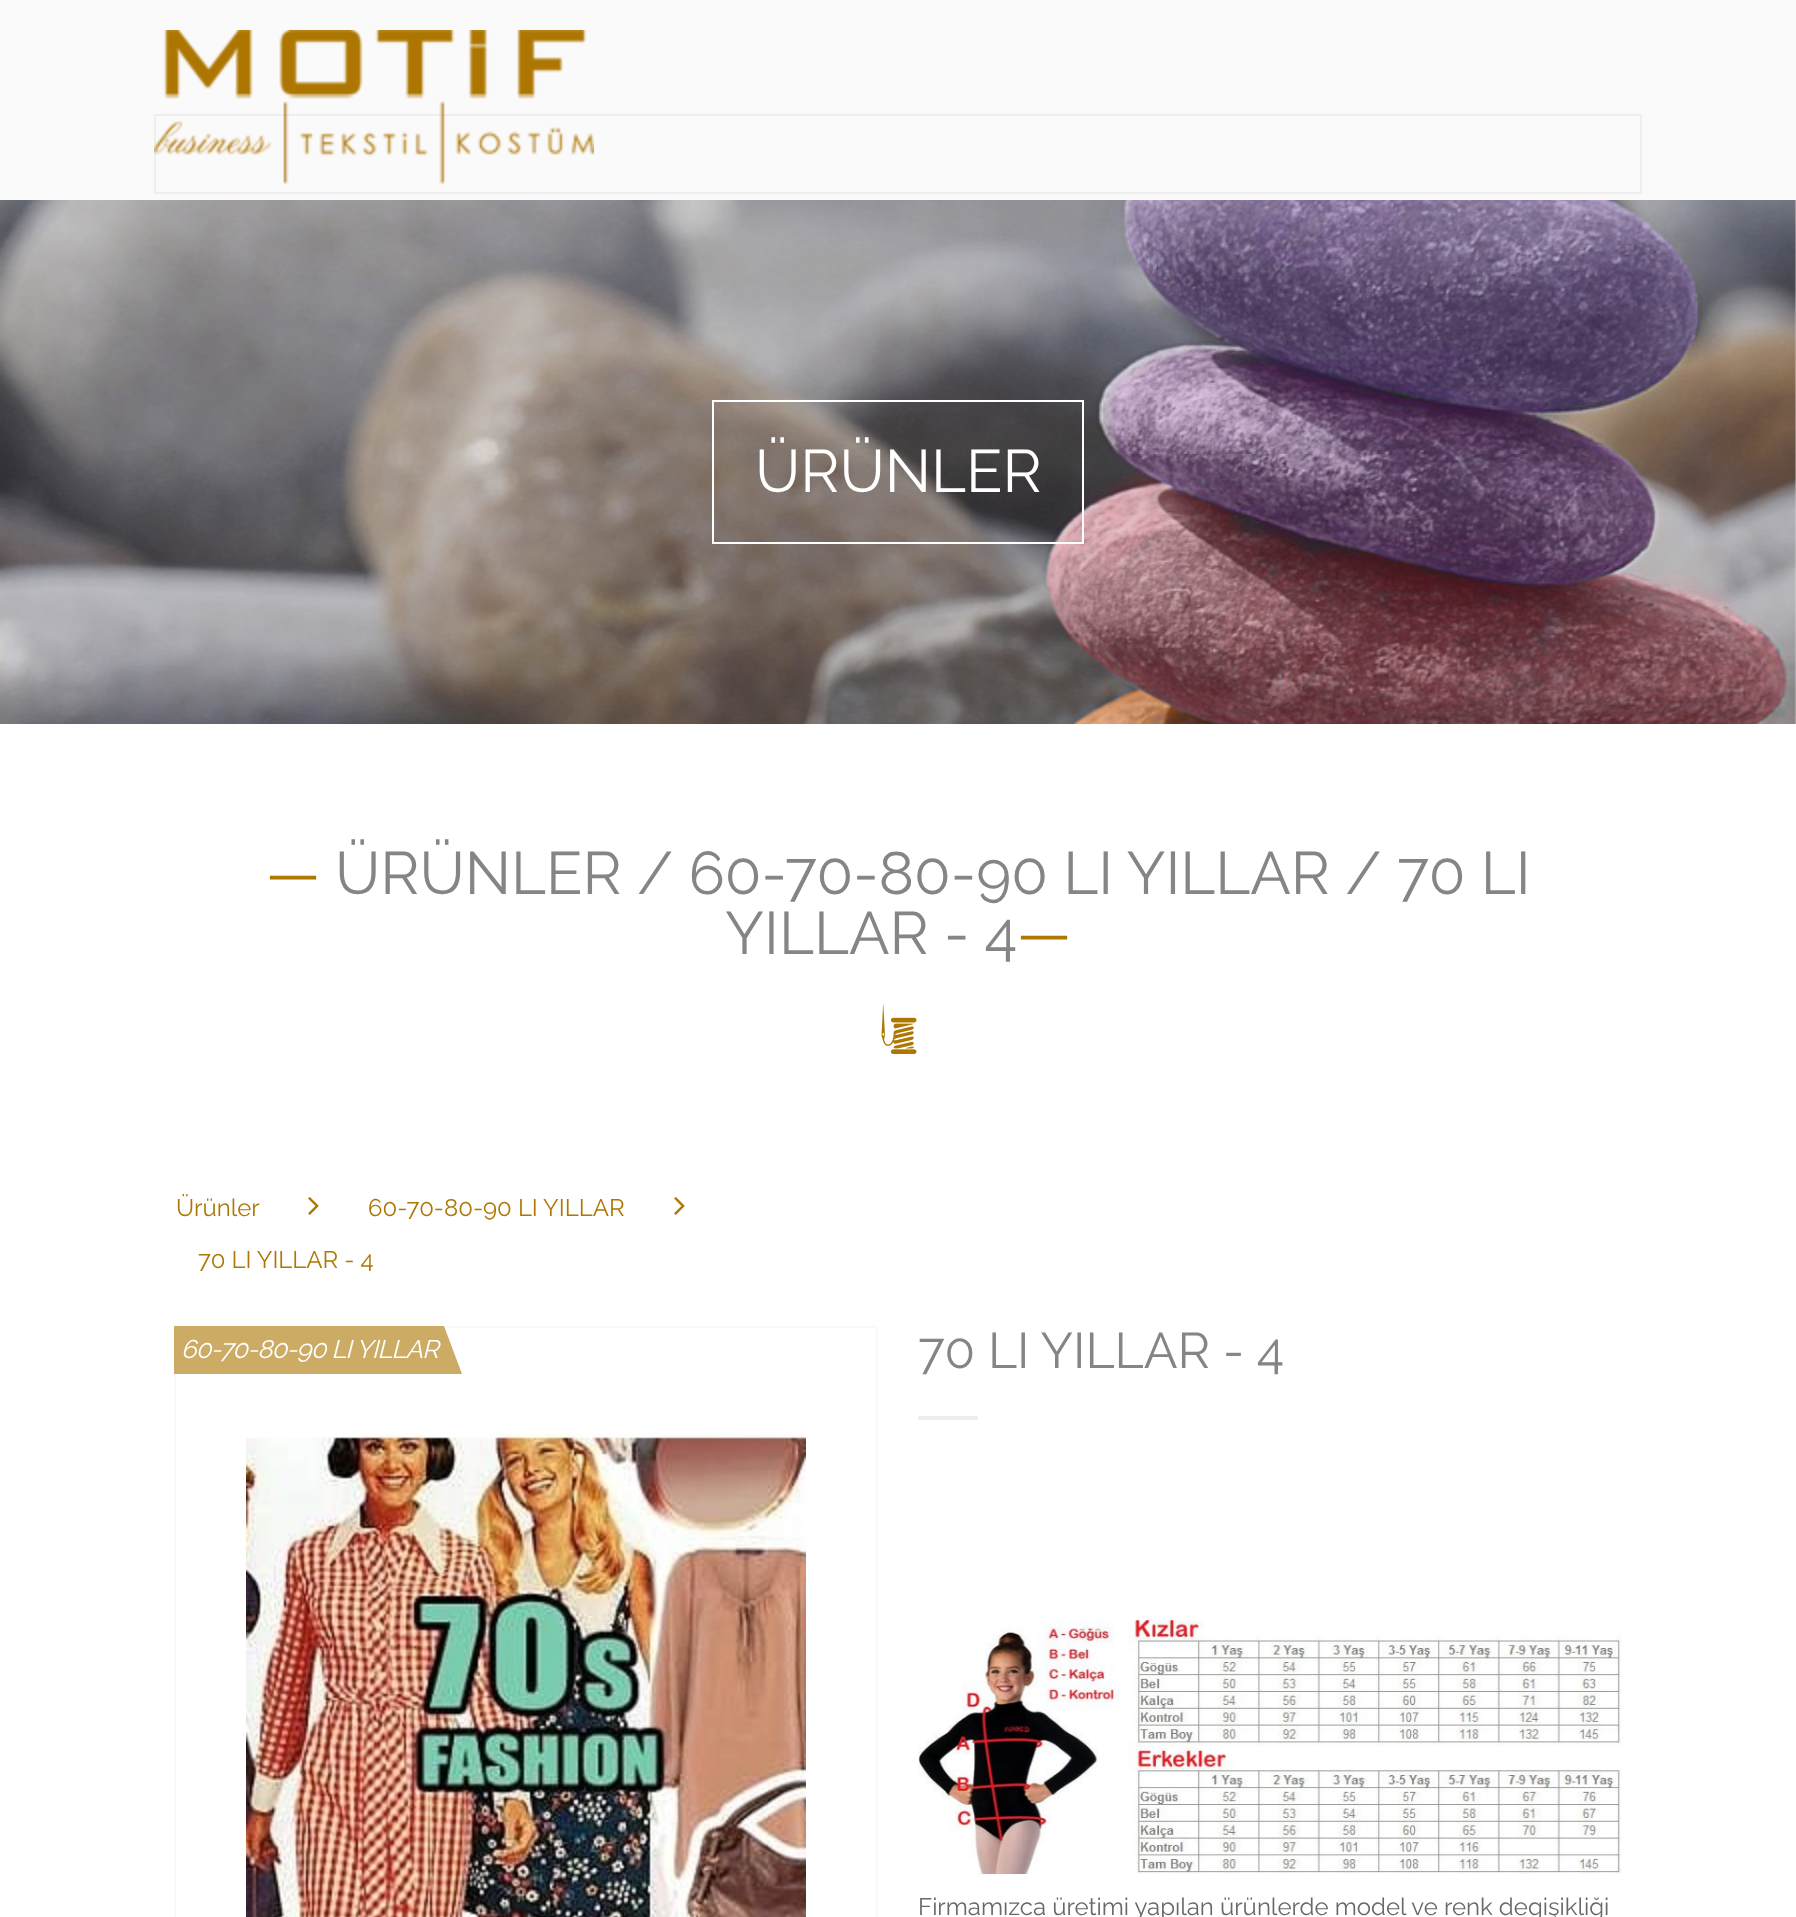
(async () => {
    const canvas = document.querySelector("canvas");
    canvas.width = 1796;
    canvas.height = 1917;
    const context = canvas.getContext("2d");
    context.miterLimit = 4;
    context.fontKerning = "normal";
    function write(s, x, y, font, color) {
        context.font = font;
        context.fillStyle = color;
        context.fillText(s, x, y);
    }
    function block(x, y, w, h, color) {
        context.fillStyle = color;
        context.fillRect(x, y, w, h);
    }
    async function photo(src, x, y, w, h) {
        const img = new Image();
        img.src = src;
        await img.decode();
        context.drawImage(img, x, y, w, h);
    }

    block(0, 0, 1796, 1917, "rgb(255, 255, 255)");
    block(1794, 200, 2, 524, "rgb(228, 227, 230)");
    block(0, 0, 1796, 200, "rgb(250, 250, 250)");
    context.strokeStyle = "rgb(238, 238, 238)";
    context.lineWidth = 2;
    context.strokeRect(155, 115, 1486, 78);
    await photo("media/1.png", 154, 30, 440, 154);
    await photo("media/2.png", 0, 200, 1796, 524);
    context.strokeStyle = "rgb(255, 255, 255)";
    context.strokeRect(713, 401, 370, 142);
    write("ÜRÜNLER", 755, 492, "100 60px Raleway", "rgb(255, 255, 255)");
    write("—", 266, 894, "100 60px Raleway", "rgb(173, 119, 1)");
    write("ÜRÜNLER / 60-70-80-90 LI YILLAR / 70 LI", 335, 894, "100 60px Raleway", "rgb(134, 133, 133)");
    write("YILLAR - 4", 725, 954, "100 60px Raleway", "rgb(134, 133, 133)");
    write("—", 1017, 954, "100 60px Raleway", "rgb(173, 119, 1)");
    await photo("media/3.png", 881, 1004, 36, 50);
    write("Ürünler", 176, 1216, "100 24px Raleway", "rgb(173, 119, 1)");
    await photo("media/4.png", 308, 1197, 11, 18);
    write("60-70-80-90 LI YILLAR", 368, 1216, "100 24px Raleway", "rgb(173, 119, 1)");
    await photo("media/4.png", 674, 1197, 11, 18);
    write("70 LI YILLAR - 4", 198, 1268, "100 24px Raleway", "rgb(173, 119, 1)");
    context.strokeStyle = "rgb(249, 249, 249)";
    context.strokeRect(175, 1327, 702, 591);
    await photo("media/5.png", 246, 1433, 560, 484);
    context.save();
    context.beginPath();
    context.rect(174, 1326, 704, 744);
    context.clip();
    context.fillStyle = "rgb(204, 171, 101)";
    context.beginPath();
    context.moveTo(145, 1326);
    context.lineTo(444, 1326);
    context.lineTo(462, 1374);
    context.lineTo(163, 1374);
    context.closePath();
    context.fill();
    context.restore();
    context.letterSpacing = "-0.75px";
    write("60-70-80-90 LI YILLAR", 181, 1358, "italic 100 25.5px Raleway", "rgb(255, 255, 255)");
    context.letterSpacing = "0px";
    write("70 LI YILLAR - 4", 918, 1368, "100 50px Raleway", "rgb(134, 133, 133)");
    block(918, 1416, 60, 4, "rgb(238, 238, 238)");
    await photo("media/6.png", 918, 1620, 704, 254);
    write("Firmamızca üretimi yapılan ürünlerde model ve renk degişikliği", 918, 1915, "100 24px Raleway", "rgb(104, 104, 104)");
})();
